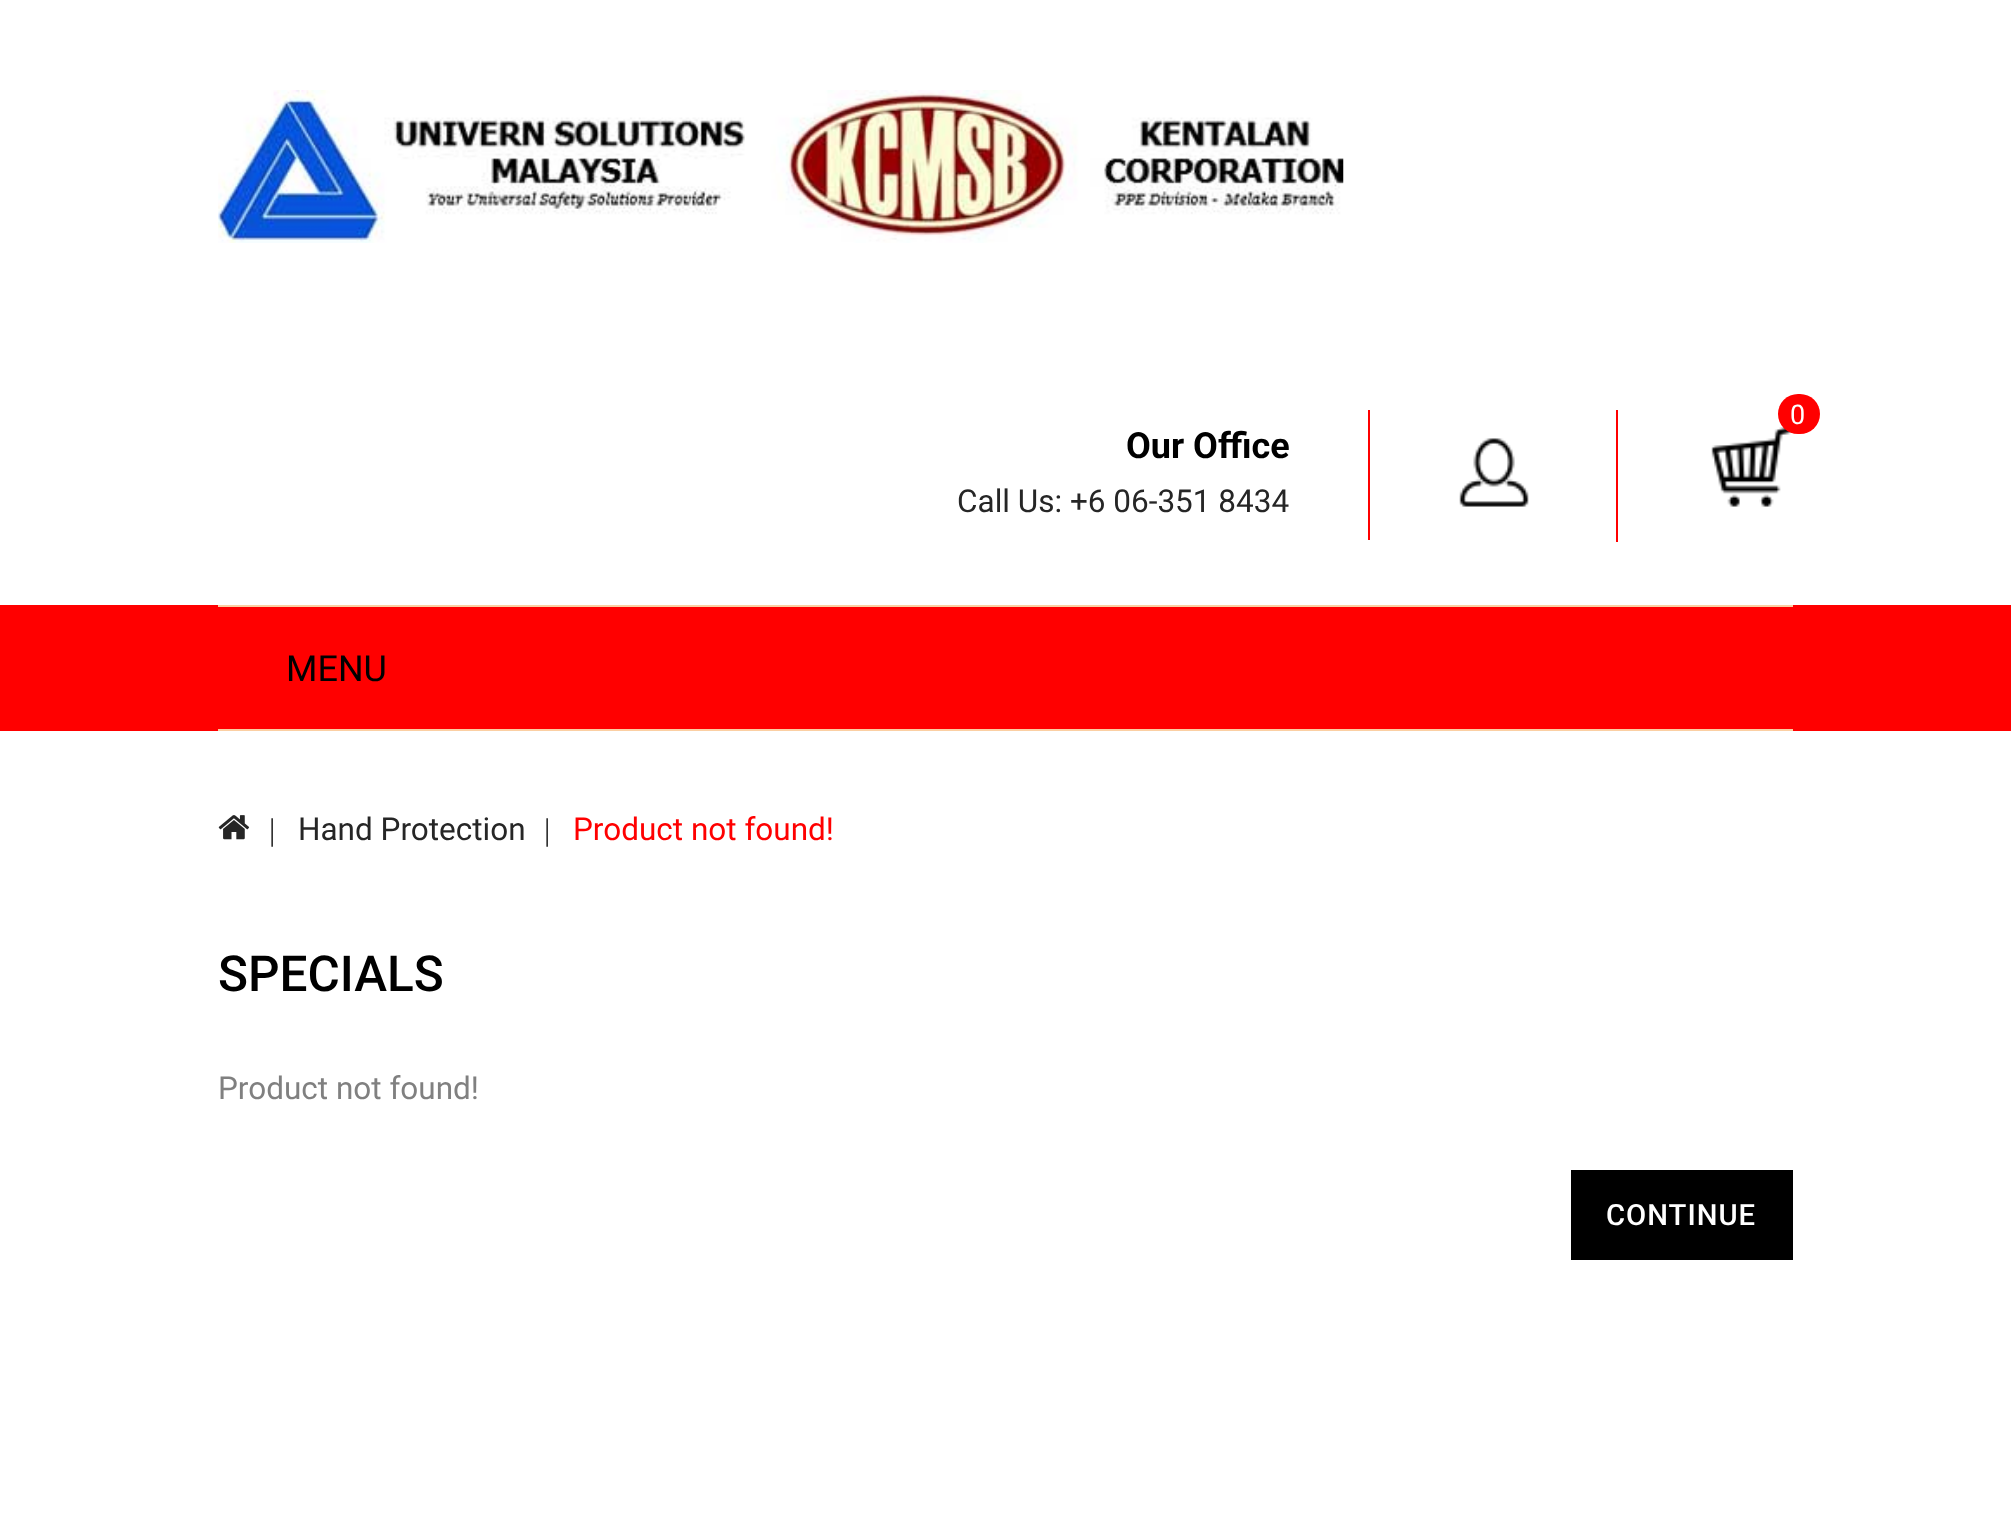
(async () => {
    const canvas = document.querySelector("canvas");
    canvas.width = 2011;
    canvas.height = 1526;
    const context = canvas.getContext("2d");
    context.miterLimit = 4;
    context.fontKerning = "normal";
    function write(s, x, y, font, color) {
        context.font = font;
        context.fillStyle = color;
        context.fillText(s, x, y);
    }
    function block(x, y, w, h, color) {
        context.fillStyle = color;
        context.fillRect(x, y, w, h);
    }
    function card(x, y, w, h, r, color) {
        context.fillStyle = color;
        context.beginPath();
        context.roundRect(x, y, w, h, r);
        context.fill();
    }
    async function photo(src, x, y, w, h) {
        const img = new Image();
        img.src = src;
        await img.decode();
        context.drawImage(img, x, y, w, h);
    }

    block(0, 0, 2011, 1526, "rgb(255, 255, 255)");
    await photo("media/1.png", 218, 90, 1126, 153);
    block(1368, 410, 2, 130, "rgb(255, 0, 0)");
    write("Our Office", 1126, 458, "bold 36px Roboto", "rgb(0, 0, 0)");
    write("Call Us: +6 06-351 8434", 957, 512, "31.5px Roboto", "rgb(38, 38, 38)");
    block(1616, 410, 2, 132, "rgb(255, 0, 0)");
    await photo("media/2.png", 1459, 438, 70, 69);
    await photo("media/3.png", 1711, 427, 81, 80);
    card(1778, 394, 42, 40, 20, "rgb(255, 0, 0)");
    context.letterSpacing = "1px";
    write("0", 1790, 424, "27px Roboto", "rgb(255, 255, 255)");
    block(0, 605, 2011, 126, "rgb(255, 0, 0)");
    block(218, 605, 1575, 2, "rgb(251, 207, 163)");
    block(218, 729, 1575, 2, "rgb(251, 207, 163)");
    context.letterSpacing = "0px";
    write("MENU", 286, 681, "36px Roboto", "rgb(0, 0, 0)");
    await photo("media/4.png", 218, 815, 32, 25);
    write("|", 269, 840, "31.5px Liberation Serif", "rgb(38, 38, 38)");
    write("Hand Protection", 298, 840, "31.5px Roboto", "rgb(38, 38, 38)");
    write("|", 544, 840, "31.5px Liberation Serif", "rgb(38, 38, 38)");
    write("Product not found!", 573, 840, "31.5px Roboto", "rgb(255, 0, 0)");
    write("SPECIALS", 218, 991, "500 49.5px Roboto", "rgb(0, 0, 0)");
    write("Product not found!", 218, 1099, "31.5px Roboto", "rgb(128, 128, 128)");
    block(1571, 1170, 222, 90, "rgb(0, 0, 0)");
    context.letterSpacing = "1px";
    write("CONTINUE", 1606, 1225, "500 29.25px Roboto", "rgb(255, 255, 255)");
})();
